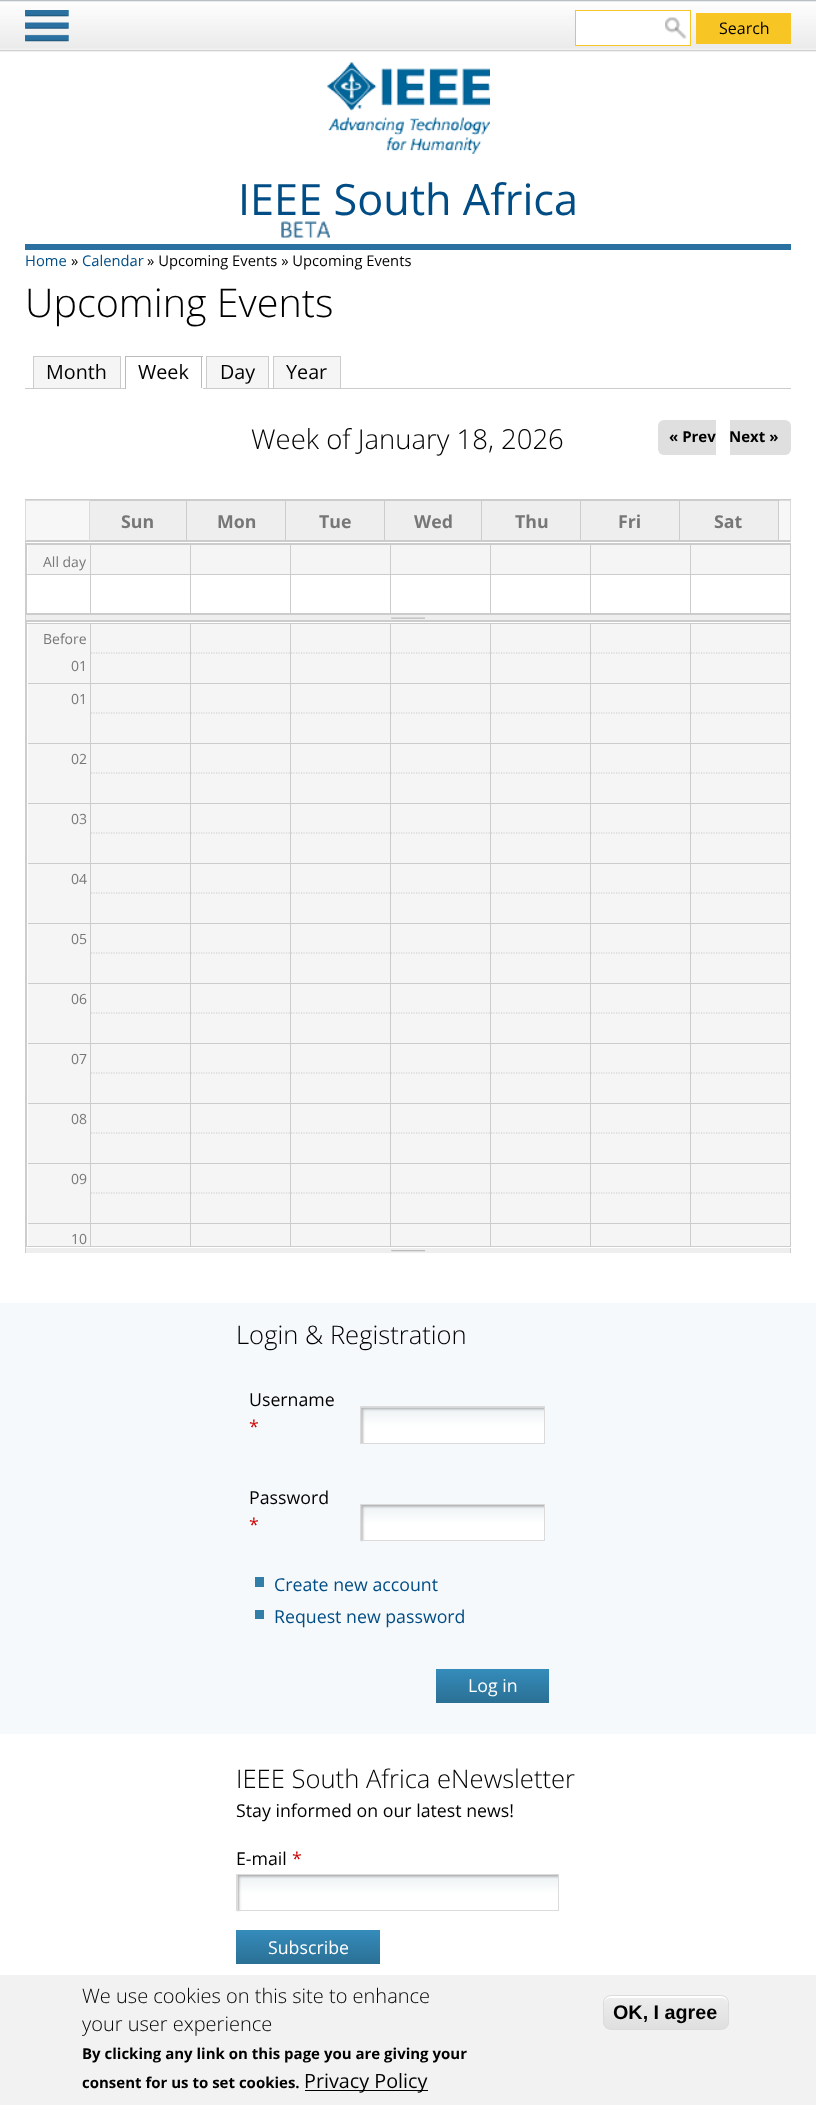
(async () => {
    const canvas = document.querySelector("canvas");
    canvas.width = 816;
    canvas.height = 2105;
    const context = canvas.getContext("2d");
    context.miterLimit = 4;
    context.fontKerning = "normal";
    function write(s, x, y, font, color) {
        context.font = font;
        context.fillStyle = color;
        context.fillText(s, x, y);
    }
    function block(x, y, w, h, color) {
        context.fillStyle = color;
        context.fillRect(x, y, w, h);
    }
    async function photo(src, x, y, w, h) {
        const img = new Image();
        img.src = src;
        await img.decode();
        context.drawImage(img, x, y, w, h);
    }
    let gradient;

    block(0, 0, 816, 2105, "rgb(255, 255, 255)");
    await photo("media/1.png", 0, 0, 816, 52);
    await photo("media/2.png", 25, 10, 44, 32);
    block(576, 11, 114, 34, "rgb(255, 255, 255)");
    await photo("media/3.png", 665, 17, 22, 22);
    context.strokeStyle = "rgb(247, 198, 37)";
    context.strokeRect(575.5, 10.5, 115, 35);
    block(696, 13, 95, 31, "rgb(247, 198, 37)");
    write("Search", 719, 34, "16px Open Sans", "rgb(0, 0, 0)");
    block(25, 244, 766, 6, "rgb(42, 113, 161)");
    await photo("media/4.png", 327, 62, 163, 92);
    await photo("media/5.png", 281, 221, 49, 17);
    write("IEEE South Africa", 238, 215, "43.25px Open Sans", "rgb(0, 77, 133)");
    write("Home", 25, 266, "14.75px Open Sans", "rgb(0, 77, 133)");
    write("»", 71, 266, "14.75px Open Sans", "rgb(0, 0, 0)");
    write("Calendar", 82, 266, "14.75px Open Sans", "rgb(0, 77, 133)");
    write("» Upcoming Events » Upcoming Events", 147, 266, "14.75px Open Sans", "rgb(0, 0, 0)");
    write("Upcoming Events", 25, 317, "300 39.5px Open Sans", "rgb(0, 0, 0)");
    block(25, 388, 766, 1, "rgb(204, 204, 204)");
    block(34, 357, 86, 31, "rgb(245, 245, 245)");
    block(33, 356, 88, 1, "rgb(204, 204, 204)");
    block(120, 356, 1, 32, "rgb(204, 204, 204)");
    block(33, 356, 1, 32, "rgb(204, 204, 204)");
    write("Month", 46, 379, "19.75px Open Sans", "rgb(0, 0, 0)");
    block(125, 356, 78, 1, "rgb(187, 187, 187)");
    block(201, 356, 1, 33, "rgb(187, 187, 187)");
    block(125, 388, 78, 1, "rgb(255, 255, 255)");
    block(125, 356, 1, 33, "rgb(187, 187, 187)");
    write("Week", 138, 379, "19.75px Open Sans", "rgb(0, 0, 0)");
    block(207, 357, 61, 31, "rgb(245, 245, 245)");
    block(206, 356, 63, 1, "rgb(204, 204, 204)");
    block(268, 356, 1, 32, "rgb(204, 204, 204)");
    block(206, 356, 1, 32, "rgb(204, 204, 204)");
    write("Day", 220, 379, "19.75px Open Sans", "rgb(0, 0, 0)");
    block(274, 357, 66, 31, "rgb(245, 245, 245)");
    block(273, 356, 68, 1, "rgb(204, 204, 204)");
    block(340, 356, 1, 32, "rgb(204, 204, 204)");
    block(273, 356, 1, 32, "rgb(204, 204, 204)");
    write("Year", 286, 379, "19.75px Open Sans", "rgb(0, 0, 0)");
    write("Week of January 18, 2026", 251, 449, "300 27.5px Open Sans", "rgb(0, 0, 0)");
    context.fillStyle = "rgb(223, 223, 223)";
    context.beginPath();
    context.roundRect(658, 420, 58, 35, [6, 0, 0, 6]);
    context.fill();
    write("« Prev", 669, 442, "bold 15px Open Sans", "rgb(0, 0, 0)");
    context.fillStyle = "rgb(223, 223, 223)";
    context.beginPath();
    context.roundRect(730, 420, 61, 35, [0, 6, 6, 0]);
    context.fill();
    write("Next »", 729, 442, "bold 15px Open Sans", "rgb(0, 0, 0)");
    block(25, 499, 766, 1, "rgb(204, 204, 204)");
    block(25, 540, 766, 2, "rgb(204, 204, 204)");
    block(90, 500, 589, 1, "rgb(204, 204, 204)");
    block(26, 501, 63, 39, "rgb(247, 247, 247)");
    block(25, 500, 65, 1, "rgb(219, 219, 219)");
    block(89, 500, 1, 41, "rgb(219, 219, 219)");
    block(25, 500, 1, 41, "rgb(219, 219, 219)");
    block(90, 501, 195, 39, "rgb(238, 238, 238)");
    write("Sun", 121, 528, "bold 17.75px Open Sans", "rgb(119, 119, 119)");
    block(186, 500, 1, 41, "rgb(204, 204, 204)");
    write("Mon", 217, 528, "bold 17.75px Open Sans", "rgb(119, 119, 119)");
    block(286, 501, 98, 39, "rgb(238, 238, 238)");
    block(285, 500, 1, 41, "rgb(204, 204, 204)");
    write("Tue", 319, 528, "bold 17.75px Open Sans", "rgb(119, 119, 119)");
    block(385, 501, 195, 39, "rgb(238, 238, 238)");
    block(384, 500, 1, 41, "rgb(204, 204, 204)");
    write("Wed", 414, 528, "bold 17.75px Open Sans", "rgb(119, 119, 119)");
    block(481, 500, 1, 41, "rgb(204, 204, 204)");
    write("Thu", 515, 528, "bold 17.75px Open Sans", "rgb(119, 119, 119)");
    block(581, 501, 98, 39, "rgb(238, 238, 238)");
    block(580, 500, 1, 41, "rgb(204, 204, 204)");
    write("Fri", 618, 528, "bold 17.75px Open Sans", "rgb(119, 119, 119)");
    block(680, 501, 98, 39, "rgb(238, 238, 238)");
    block(778, 500, 13, 1, "rgb(219, 219, 219)");
    block(679, 500, 100, 1, "rgb(204, 204, 204)");
    block(778, 500, 1, 41, "rgb(204, 204, 204)");
    block(679, 500, 1, 41, "rgb(204, 204, 204)");
    write("Sat", 714, 528, "bold 17.75px Open Sans", "rgb(119, 119, 119)");
    block(779, 501, 11, 39, "rgb(247, 247, 247)");
    block(790, 500, 1, 41, "rgb(219, 219, 219)");
    block(25, 614, 766, 1, "rgb(204, 204, 204)");
    block(25, 541, 1, 74, "rgb(204, 204, 204)");
    block(26, 543, 765, 1, "rgb(204, 204, 204)");
    block(790, 543, 1, 71, "rgb(204, 204, 204)");
    block(26, 613, 765, 1, "rgb(204, 204, 204)");
    block(26, 543, 1, 71, "rgb(204, 204, 204)");
    block(26, 574, 765, 1, "rgb(204, 204, 204)");
    block(28, 545, 762, 29, "rgb(245, 245, 245)");
    block(26, 544, 765, 1, "rgb(204, 204, 204)");
    block(90, 544, 1, 70, "rgb(204, 204, 204)");
    block(190, 544, 1, 70, "rgb(204, 204, 204)");
    block(290, 544, 1, 70, "rgb(204, 204, 204)");
    block(390, 544, 1, 70, "rgb(204, 204, 204)");
    block(490, 544, 1, 70, "rgb(204, 204, 204)");
    block(590, 544, 1, 70, "rgb(204, 204, 204)");
    block(690, 544, 1, 70, "rgb(204, 204, 204)");
    write("All day", 43, 567, "14px Open Sans", "rgb(119, 119, 119)");
    block(25, 615, 766, 5, "rgb(238, 238, 238)");
    block(790, 615, 1, 5, "rgb(204, 204, 204)");
    block(25, 615, 1, 5, "rgb(204, 204, 204)");
    await photo("media/6.png", 391, 617, 34, 2);
    block(25, 620, 766, 1, "rgb(204, 204, 204)");
    block(25, 1246, 766, 1, "rgb(204, 204, 204)");
    block(25, 620, 1, 628, "rgb(204, 204, 204)");
    block(26, 621, 765, 1, "rgb(204, 204, 204)");
    block(790, 621, 1, 625, "rgb(204, 204, 204)");
    block(26, 621, 1, 625, "rgb(204, 204, 204)");
    block(28, 624, 762, 622, "rgb(245, 245, 245)");
    block(26, 623, 765, 1, "rgb(204, 204, 204)");
    write("Before", 43, 644, "14px Open Sans", "rgb(119, 119, 119)");
    write("01", 71, 671, "14px Open Sans", "rgb(119, 119, 119)");
    block(28, 683, 62, 1, "rgb(204, 204, 204)");
    write("01", 71, 704, "14px Open Sans", "rgb(119, 119, 119)");
    block(28, 743, 62, 1, "rgb(204, 204, 204)");
    write("02", 71, 764, "14px Open Sans", "rgb(119, 119, 119)");
    block(28, 803, 62, 1, "rgb(204, 204, 204)");
    write("03", 71, 824, "14px Open Sans", "rgb(119, 119, 119)");
    block(28, 863, 62, 1, "rgb(204, 204, 204)");
    write("04", 71, 884, "14px Open Sans", "rgb(119, 119, 119)");
    block(28, 923, 62, 1, "rgb(204, 204, 204)");
    write("05", 71, 944, "14px Open Sans", "rgb(119, 119, 119)");
    block(28, 983, 62, 1, "rgb(204, 204, 204)");
    write("06", 71, 1004, "14px Open Sans", "rgb(119, 119, 119)");
    block(28, 1043, 62, 1, "rgb(204, 204, 204)");
    write("07", 71, 1064, "14px Open Sans", "rgb(119, 119, 119)");
    block(28, 1103, 62, 1, "rgb(204, 204, 204)");
    write("08", 71, 1124, "14px Open Sans", "rgb(119, 119, 119)");
    block(28, 1163, 62, 1, "rgb(204, 204, 204)");
    write("09", 71, 1184, "14px Open Sans", "rgb(119, 119, 119)");
    block(28, 1223, 62, 1, "rgb(204, 204, 204)");
    write("10", 71, 1244, "14px Open Sans", "rgb(119, 119, 119)");
    block(90, 623, 1, 623, "rgb(204, 204, 204)");
    context.beginPath();
    context.moveTo(91, 653);
    context.lineTo(190, 653);
    context.strokeStyle = "rgb(204, 204, 204)";
    context.lineWidth = 1.2;
    context.setLineDash([1.25, 1.25]);
    context.stroke();
    block(91, 683, 99, 1, "rgb(204, 204, 204)");
    context.beginPath();
    context.moveTo(91, 713);
    context.lineTo(190, 713);
    context.stroke();
    block(91, 743, 99, 1, "rgb(204, 204, 204)");
    context.beginPath();
    context.moveTo(91, 773);
    context.lineTo(190, 773);
    context.stroke();
    block(91, 803, 99, 1, "rgb(204, 204, 204)");
    context.beginPath();
    context.moveTo(91, 833);
    context.lineTo(190, 833);
    context.stroke();
    block(91, 863, 99, 1, "rgb(204, 204, 204)");
    context.beginPath();
    context.moveTo(91, 893);
    context.lineTo(190, 893);
    context.stroke();
    block(91, 923, 99, 1, "rgb(204, 204, 204)");
    context.beginPath();
    context.moveTo(91, 953);
    context.lineTo(190, 953);
    context.stroke();
    block(91, 983, 99, 1, "rgb(204, 204, 204)");
    context.beginPath();
    context.moveTo(91, 1013);
    context.lineTo(190, 1013);
    context.stroke();
    block(91, 1043, 99, 1, "rgb(204, 204, 204)");
    context.beginPath();
    context.moveTo(91, 1073);
    context.lineTo(190, 1073);
    context.stroke();
    block(91, 1103, 99, 1, "rgb(204, 204, 204)");
    context.beginPath();
    context.moveTo(91, 1133);
    context.lineTo(190, 1133);
    context.stroke();
    block(91, 1163, 99, 1, "rgb(204, 204, 204)");
    context.beginPath();
    context.moveTo(91, 1193);
    context.lineTo(190, 1193);
    context.stroke();
    block(91, 1223, 99, 1, "rgb(204, 204, 204)");
    block(190, 623, 1, 623, "rgb(204, 204, 204)");
    context.beginPath();
    context.moveTo(191, 653);
    context.lineTo(290, 653);
    context.stroke();
    block(191, 683, 99, 1, "rgb(204, 204, 204)");
    context.beginPath();
    context.moveTo(191, 713);
    context.lineTo(290, 713);
    context.stroke();
    block(191, 743, 99, 1, "rgb(204, 204, 204)");
    context.beginPath();
    context.moveTo(191, 773);
    context.lineTo(290, 773);
    context.stroke();
    block(191, 803, 99, 1, "rgb(204, 204, 204)");
    context.beginPath();
    context.moveTo(191, 833);
    context.lineTo(290, 833);
    context.stroke();
    block(191, 863, 99, 1, "rgb(204, 204, 204)");
    context.beginPath();
    context.moveTo(191, 893);
    context.lineTo(290, 893);
    context.stroke();
    block(191, 923, 99, 1, "rgb(204, 204, 204)");
    context.beginPath();
    context.moveTo(191, 953);
    context.lineTo(290, 953);
    context.stroke();
    block(191, 983, 99, 1, "rgb(204, 204, 204)");
    context.beginPath();
    context.moveTo(191, 1013);
    context.lineTo(290, 1013);
    context.stroke();
    block(191, 1043, 99, 1, "rgb(204, 204, 204)");
    context.beginPath();
    context.moveTo(191, 1073);
    context.lineTo(290, 1073);
    context.stroke();
    block(191, 1103, 99, 1, "rgb(204, 204, 204)");
    context.beginPath();
    context.moveTo(191, 1133);
    context.lineTo(290, 1133);
    context.stroke();
    block(191, 1163, 99, 1, "rgb(204, 204, 204)");
    context.beginPath();
    context.moveTo(191, 1193);
    context.lineTo(290, 1193);
    context.stroke();
    block(191, 1223, 99, 1, "rgb(204, 204, 204)");
    block(290, 623, 1, 623, "rgb(204, 204, 204)");
    context.beginPath();
    context.moveTo(291, 653);
    context.lineTo(390, 653);
    context.stroke();
    block(291, 683, 99, 1, "rgb(204, 204, 204)");
    context.beginPath();
    context.moveTo(291, 713);
    context.lineTo(390, 713);
    context.stroke();
    block(291, 743, 99, 1, "rgb(204, 204, 204)");
    context.beginPath();
    context.moveTo(291, 773);
    context.lineTo(390, 773);
    context.stroke();
    block(291, 803, 99, 1, "rgb(204, 204, 204)");
    context.beginPath();
    context.moveTo(291, 833);
    context.lineTo(390, 833);
    context.stroke();
    block(291, 863, 99, 1, "rgb(204, 204, 204)");
    context.beginPath();
    context.moveTo(291, 893);
    context.lineTo(390, 893);
    context.stroke();
    block(291, 923, 99, 1, "rgb(204, 204, 204)");
    context.beginPath();
    context.moveTo(291, 953);
    context.lineTo(390, 953);
    context.stroke();
    block(291, 983, 99, 1, "rgb(204, 204, 204)");
    context.beginPath();
    context.moveTo(291, 1013);
    context.lineTo(390, 1013);
    context.stroke();
    block(291, 1043, 99, 1, "rgb(204, 204, 204)");
    context.beginPath();
    context.moveTo(291, 1073);
    context.lineTo(390, 1073);
    context.stroke();
    block(291, 1103, 99, 1, "rgb(204, 204, 204)");
    context.beginPath();
    context.moveTo(291, 1133);
    context.lineTo(390, 1133);
    context.stroke();
    block(291, 1163, 99, 1, "rgb(204, 204, 204)");
    context.beginPath();
    context.moveTo(291, 1193);
    context.lineTo(390, 1193);
    context.stroke();
    block(291, 1223, 99, 1, "rgb(204, 204, 204)");
    block(390, 623, 1, 623, "rgb(204, 204, 204)");
    context.beginPath();
    context.moveTo(391, 653);
    context.lineTo(490, 653);
    context.stroke();
    block(391, 683, 99, 1, "rgb(204, 204, 204)");
    context.beginPath();
    context.moveTo(391, 713);
    context.lineTo(490, 713);
    context.stroke();
    block(391, 743, 99, 1, "rgb(204, 204, 204)");
    context.beginPath();
    context.moveTo(391, 773);
    context.lineTo(490, 773);
    context.stroke();
    block(391, 803, 99, 1, "rgb(204, 204, 204)");
    context.beginPath();
    context.moveTo(391, 833);
    context.lineTo(490, 833);
    context.stroke();
    block(391, 863, 99, 1, "rgb(204, 204, 204)");
    context.beginPath();
    context.moveTo(391, 893);
    context.lineTo(490, 893);
    context.stroke();
    block(391, 923, 99, 1, "rgb(204, 204, 204)");
    context.beginPath();
    context.moveTo(391, 953);
    context.lineTo(490, 953);
    context.stroke();
    block(391, 983, 99, 1, "rgb(204, 204, 204)");
    context.beginPath();
    context.moveTo(391, 1013);
    context.lineTo(490, 1013);
    context.stroke();
    block(391, 1043, 99, 1, "rgb(204, 204, 204)");
    context.beginPath();
    context.moveTo(391, 1073);
    context.lineTo(490, 1073);
    context.stroke();
    block(391, 1103, 99, 1, "rgb(204, 204, 204)");
    context.beginPath();
    context.moveTo(391, 1133);
    context.lineTo(490, 1133);
    context.stroke();
    block(391, 1163, 99, 1, "rgb(204, 204, 204)");
    context.beginPath();
    context.moveTo(391, 1193);
    context.lineTo(490, 1193);
    context.stroke();
    block(391, 1223, 99, 1, "rgb(204, 204, 204)");
    block(490, 623, 1, 623, "rgb(204, 204, 204)");
    context.beginPath();
    context.moveTo(491, 653);
    context.lineTo(590, 653);
    context.stroke();
    block(491, 683, 99, 1, "rgb(204, 204, 204)");
    context.beginPath();
    context.moveTo(491, 713);
    context.lineTo(590, 713);
    context.stroke();
    block(491, 743, 99, 1, "rgb(204, 204, 204)");
    context.beginPath();
    context.moveTo(491, 773);
    context.lineTo(590, 773);
    context.stroke();
    block(491, 803, 99, 1, "rgb(204, 204, 204)");
    context.beginPath();
    context.moveTo(491, 833);
    context.lineTo(590, 833);
    context.stroke();
    block(491, 863, 99, 1, "rgb(204, 204, 204)");
    context.beginPath();
    context.moveTo(491, 893);
    context.lineTo(590, 893);
    context.stroke();
    block(491, 923, 99, 1, "rgb(204, 204, 204)");
    context.beginPath();
    context.moveTo(491, 953);
    context.lineTo(590, 953);
    context.stroke();
    block(491, 983, 99, 1, "rgb(204, 204, 204)");
    context.beginPath();
    context.moveTo(491, 1013);
    context.lineTo(590, 1013);
    context.stroke();
    block(491, 1043, 99, 1, "rgb(204, 204, 204)");
    context.beginPath();
    context.moveTo(491, 1073);
    context.lineTo(590, 1073);
    context.stroke();
    block(491, 1103, 99, 1, "rgb(204, 204, 204)");
    context.beginPath();
    context.moveTo(491, 1133);
    context.lineTo(590, 1133);
    context.stroke();
    block(491, 1163, 99, 1, "rgb(204, 204, 204)");
    context.beginPath();
    context.moveTo(491, 1193);
    context.lineTo(590, 1193);
    context.stroke();
    block(491, 1223, 99, 1, "rgb(204, 204, 204)");
    block(590, 623, 1, 623, "rgb(204, 204, 204)");
    context.beginPath();
    context.moveTo(591, 653);
    context.lineTo(690, 653);
    context.stroke();
    block(591, 683, 99, 1, "rgb(204, 204, 204)");
    context.beginPath();
    context.moveTo(591, 713);
    context.lineTo(690, 713);
    context.stroke();
    block(591, 743, 99, 1, "rgb(204, 204, 204)");
    context.beginPath();
    context.moveTo(591, 773);
    context.lineTo(690, 773);
    context.stroke();
    block(591, 803, 99, 1, "rgb(204, 204, 204)");
    context.beginPath();
    context.moveTo(591, 833);
    context.lineTo(690, 833);
    context.stroke();
    block(591, 863, 99, 1, "rgb(204, 204, 204)");
    context.beginPath();
    context.moveTo(591, 893);
    context.lineTo(690, 893);
    context.stroke();
    block(591, 923, 99, 1, "rgb(204, 204, 204)");
    context.beginPath();
    context.moveTo(591, 953);
    context.lineTo(690, 953);
    context.stroke();
    block(591, 983, 99, 1, "rgb(204, 204, 204)");
    context.beginPath();
    context.moveTo(591, 1013);
    context.lineTo(690, 1013);
    context.stroke();
    block(591, 1043, 99, 1, "rgb(204, 204, 204)");
    context.beginPath();
    context.moveTo(591, 1073);
    context.lineTo(690, 1073);
    context.stroke();
    block(591, 1103, 99, 1, "rgb(204, 204, 204)");
    context.beginPath();
    context.moveTo(591, 1133);
    context.lineTo(690, 1133);
    context.stroke();
    block(591, 1163, 99, 1, "rgb(204, 204, 204)");
    context.beginPath();
    context.moveTo(591, 1193);
    context.lineTo(690, 1193);
    context.stroke();
    block(591, 1223, 99, 1, "rgb(204, 204, 204)");
    block(690, 623, 1, 623, "rgb(204, 204, 204)");
    context.beginPath();
    context.moveTo(691, 653);
    context.lineTo(790, 653);
    context.stroke();
    block(691, 683, 99, 1, "rgb(204, 204, 204)");
    context.beginPath();
    context.moveTo(691, 713);
    context.lineTo(790, 713);
    context.stroke();
    block(691, 743, 99, 1, "rgb(204, 204, 204)");
    context.beginPath();
    context.moveTo(691, 773);
    context.lineTo(790, 773);
    context.stroke();
    block(691, 803, 99, 1, "rgb(204, 204, 204)");
    context.beginPath();
    context.moveTo(691, 833);
    context.lineTo(790, 833);
    context.stroke();
    block(691, 863, 99, 1, "rgb(204, 204, 204)");
    context.beginPath();
    context.moveTo(691, 893);
    context.lineTo(790, 893);
    context.stroke();
    block(691, 923, 99, 1, "rgb(204, 204, 204)");
    context.beginPath();
    context.moveTo(691, 953);
    context.lineTo(790, 953);
    context.stroke();
    block(691, 983, 99, 1, "rgb(204, 204, 204)");
    context.beginPath();
    context.moveTo(691, 1013);
    context.lineTo(790, 1013);
    context.stroke();
    block(691, 1043, 99, 1, "rgb(204, 204, 204)");
    context.beginPath();
    context.moveTo(691, 1073);
    context.lineTo(790, 1073);
    context.stroke();
    block(691, 1103, 99, 1, "rgb(204, 204, 204)");
    context.beginPath();
    context.moveTo(691, 1133);
    context.lineTo(790, 1133);
    context.stroke();
    block(691, 1163, 99, 1, "rgb(204, 204, 204)");
    context.beginPath();
    context.moveTo(691, 1193);
    context.lineTo(790, 1193);
    context.stroke();
    block(691, 1223, 99, 1, "rgb(204, 204, 204)");
    block(25, 1248, 766, 5, "rgb(238, 238, 238)");
    block(790, 1248, 1, 5, "rgb(204, 204, 204)");
    block(25, 1248, 1, 5, "rgb(204, 204, 204)");
    await photo("media/7.png", 391, 1250, 34, 2);
    block(0, 1303, 816, 431, "rgb(246, 249, 251)");
    write("Login & Registration", 236, 1344, "300 25.6px Open Sans", "rgb(0, 0, 0)");
    write("Username", 249, 1406, "17.75px Open Sans", "rgb(0, 0, 0)");
    write("*", 249, 1433, "17.75px Open Sans", "rgb(204, 0, 0)");
    await photo("media/8.png", 361, 1407, 183, 36);
    context.strokeStyle = "rgb(219, 219, 219)";
    context.lineWidth = 1;
    context.setLineDash([]);
    context.strokeRect(360.5, 1406.5, 184, 37);
    write("Password", 249, 1504, "17.75px Open Sans", "rgb(0, 0, 0)");
    write("*", 249, 1531, "17.75px Open Sans", "rgb(204, 0, 0)");
    await photo("media/9.png", 361, 1505, 184, 37);
    context.strokeRect(360.5, 1504.5, 184, 36);
    block(255, 1577, 9, 10, "rgb(49, 127, 169)");
    write("Create new account", 274, 1591, "17.75px Open Sans", "rgb(0, 77, 133)");
    block(255, 1610, 9, 9, "rgb(49, 127, 169)");
    write("Request new password", 274, 1623, "17.75px Open Sans", "rgb(0, 77, 133)");
    gradient = context.createLinearGradient(493, 1669, 493, 1703);
    gradient.addColorStop(0, "rgb(53, 140, 187)");
    gradient.addColorStop(0.99, "rgb(43, 112, 149)");
    context.fillStyle = gradient;
    context.fillRect(436, 1669, 113, 34);
    write("Log in", 468, 1692, "17.75px Open Sans", "rgb(255, 255, 255)");
    write("IEEE South Africa eNewsletter", 236, 1788, "300 25.6px Open Sans", "rgb(0, 0, 0)");
    write("Stay informed on our latest news!", 236, 1817, "17.75px Open Sans", "rgb(0, 0, 0)");
    write("E-mail", 236, 1865, "17.75px Open Sans", "rgb(0, 0, 0)");
    write("*", 292, 1865, "17.75px Open Sans", "rgb(204, 0, 0)");
    await photo("media/10.png", 237, 1875, 322, 37);
    context.strokeRect(236.5, 1874.5, 322, 36);
    gradient = context.createLinearGradient(308, 1930, 308, 1964);
    gradient.addColorStop(0, "rgb(53, 140, 187)");
    gradient.addColorStop(0.99, "rgb(43, 112, 149)");
    context.fillStyle = gradient;
    context.fillRect(236, 1930, 144, 34);
    write("Subscribe", 268, 1954, "17.75px Open Sans", "rgb(255, 255, 255)");
    block(0, 1975, 816, 130, "rgb(242, 242, 242)");
    write("We use cookies on this site to enhance", 82, 2003, "300 20px Open Sans", "rgb(0, 0, 0)");
    write("your user experience", 82, 2031, "300 20px Open Sans", "rgb(0, 0, 0)");
    write("By clicking any link on this page you are giving your", 82, 2059, "bold 15px Open Sans", "rgb(0, 0, 0)");
    write("consent for us to set cookies.", 82, 2088, "bold 15px Open Sans", "rgb(0, 0, 0)");
    block(305, 2090, 123, 1, "rgb(0, 0, 0)");
    write("Privacy Policy", 304, 2088, "19.75px Open Sans", "rgb(0, 0, 0)");
    context.save();
    context.beginPath();
    context.roundRect(603, 1995, 126, 35, 8);
    context.clip();
    gradient = context.createLinearGradient(666, 1996, 666, 2029);
    gradient.addColorStop(0.05, "rgb(237, 237, 237)");
    gradient.addColorStop(1, "rgb(223, 223, 223)");
    context.fillStyle = gradient;
    context.fillRect(603, 1996, 126, 33);
    context.restore();
    context.fillStyle = "rgb(255, 255, 255)";
    context.beginPath();
    context.moveTo(610, 1998);
    context.lineTo(721, 1998);
    context.bezierCurveTo(725, 1998, 728, 2000, 728, 2004);
    context.lineTo(728, 2002);
    context.bezierCurveTo(728, 1999, 725, 1996, 722, 1996);
    context.lineTo(610, 1996);
    context.bezierCurveTo(607, 1996, 604, 1999, 604, 2002);
    context.lineTo(604, 2004);
    context.bezierCurveTo(604, 2000, 607, 1998, 610, 1998);
    context.closePath();
    context.fill();
    context.beginPath();
    context.roundRect(603.5, 1995.5, 125, 34, 7.5);
    context.strokeStyle = "rgb(220, 220, 220)";
    context.stroke();
    write("OK, I agree", 613, 2019, "bold 19.75px Liberation Sans", "rgb(0, 0, 0)");
})();
